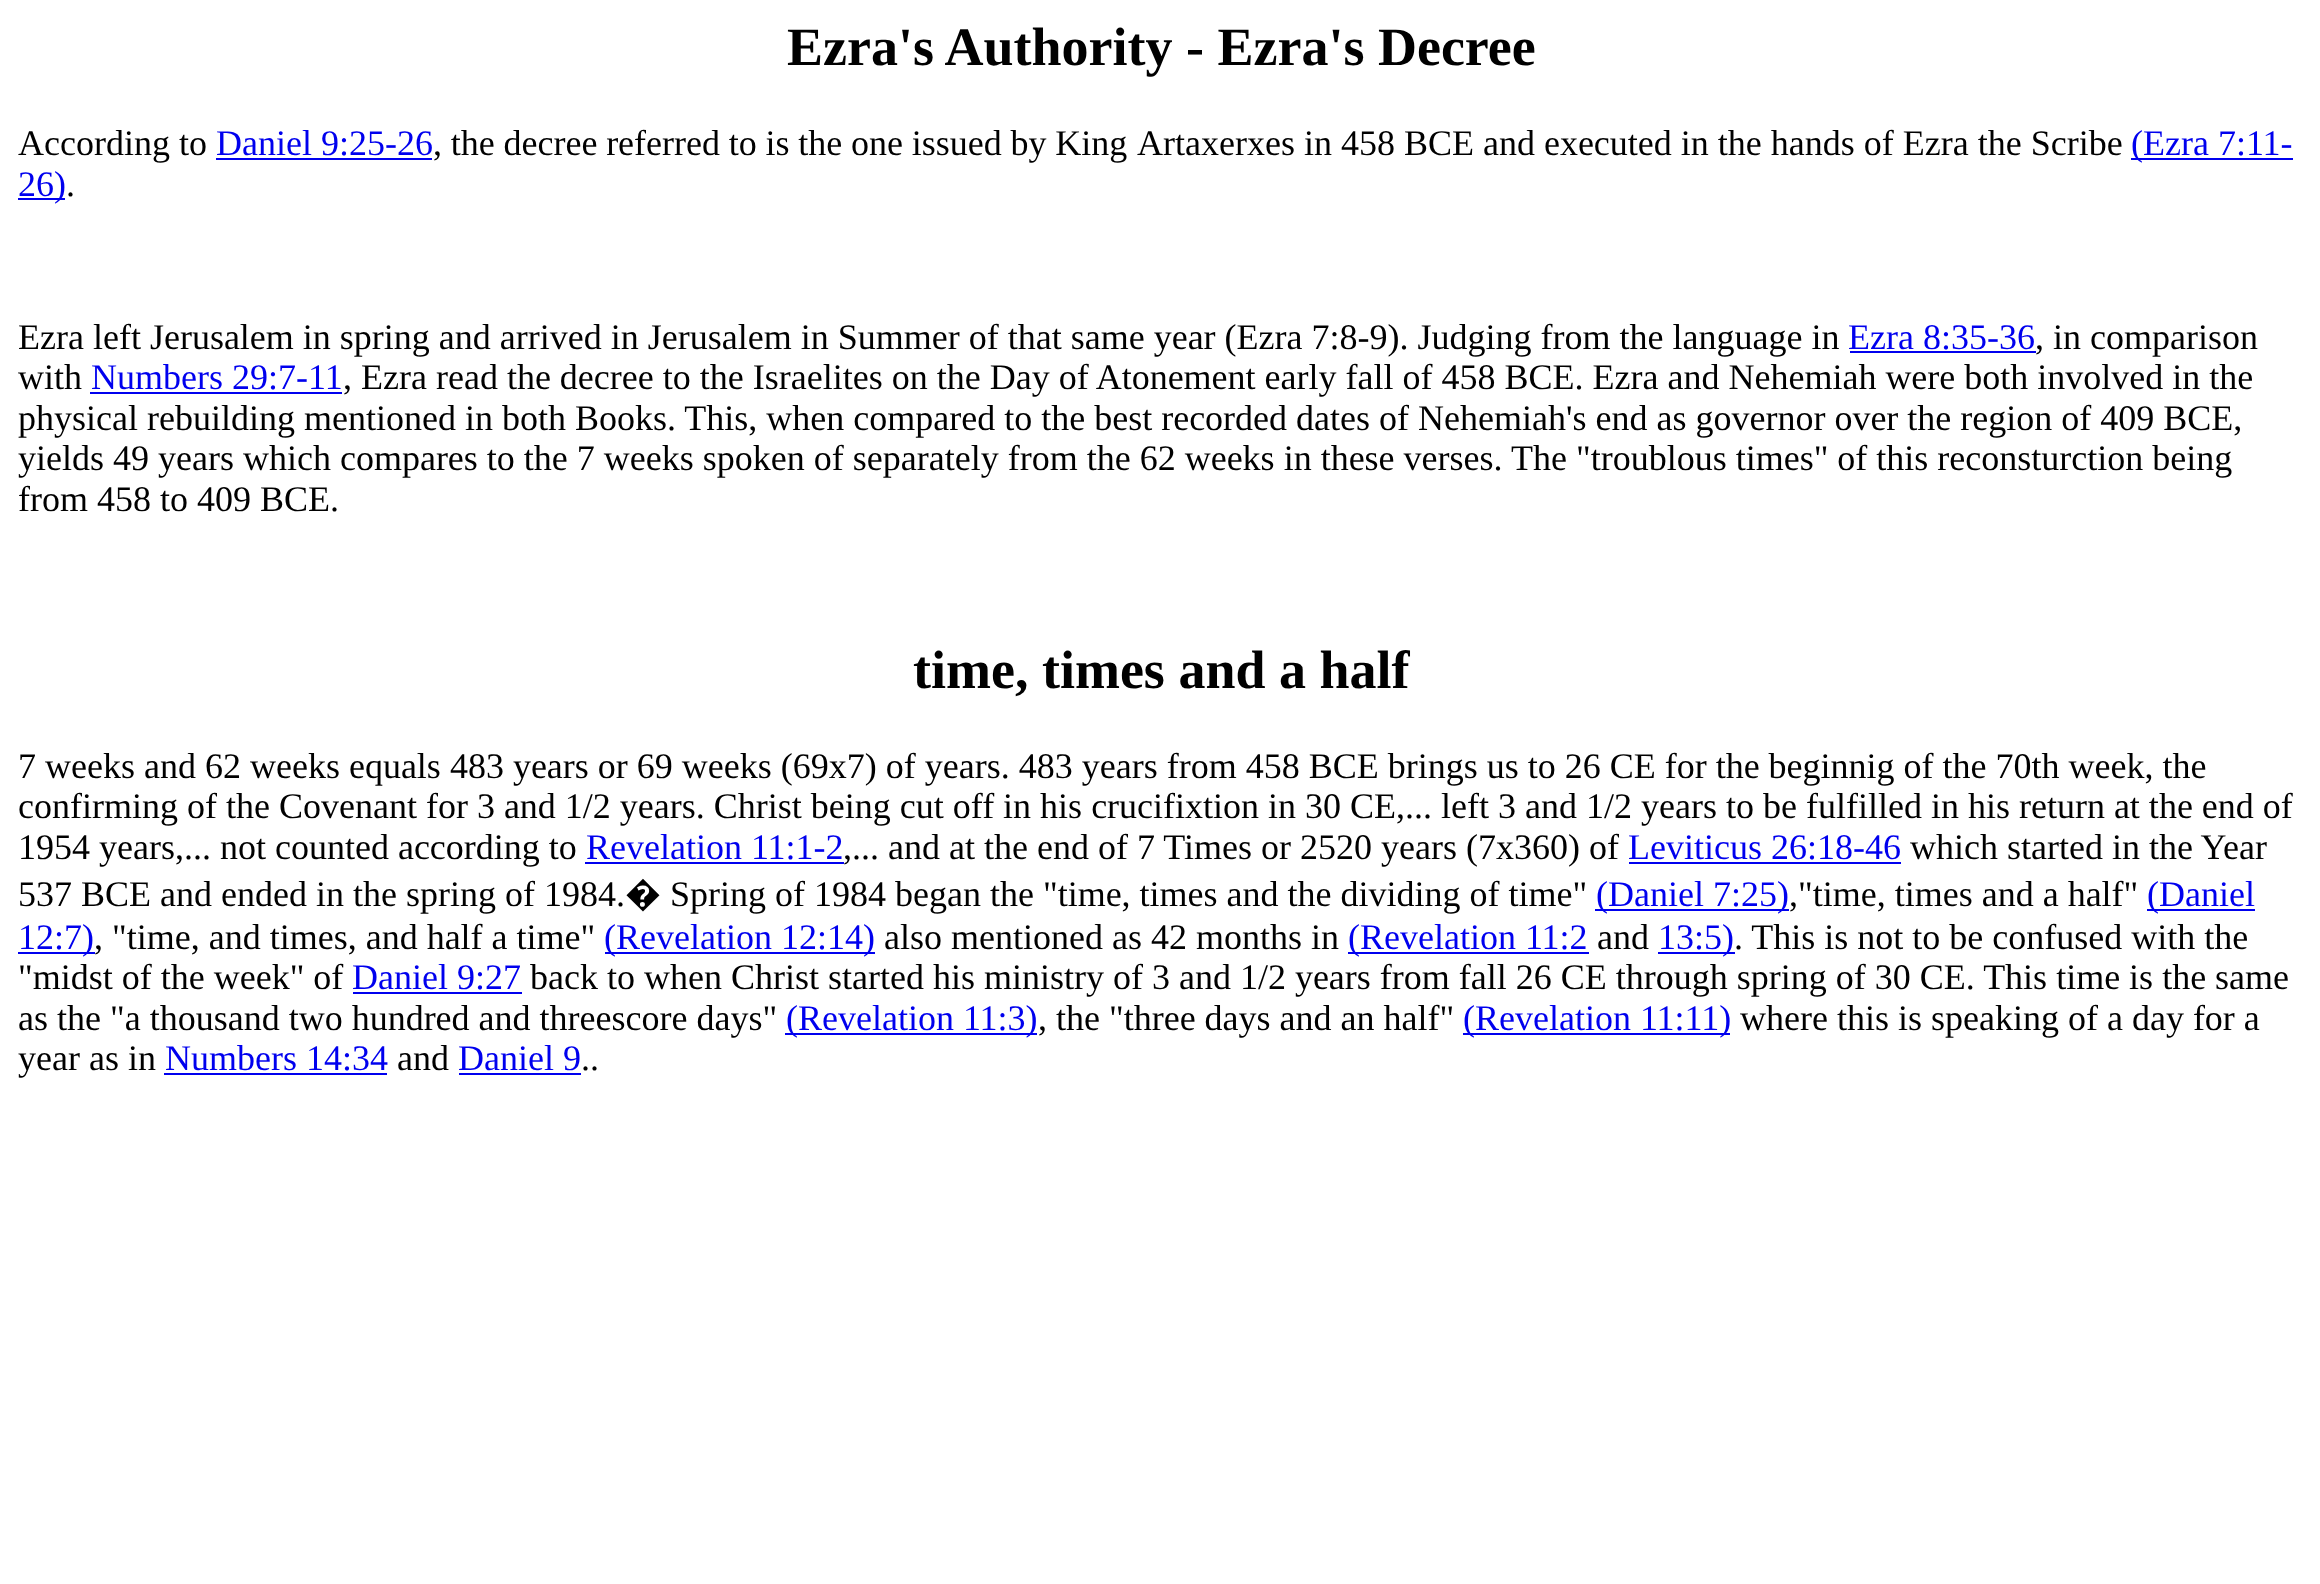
(async () => {
    const canvas = document.querySelector("canvas");
    canvas.width = 2320;
    canvas.height = 1584;
    const context = canvas.getContext("2d");
    context.miterLimit = 4;
    context.fontKerning = "normal";
    function write(s, x, y, font, color) {
        context.font = font;
        context.fillStyle = color;
        context.fillText(s, x, y);
    }
    function block(x, y, w, h, color) {
        context.fillStyle = color;
        context.fillRect(x, y, w, h);
    }

    block(0, 0, 2320, 1584, "rgb(255, 255, 255)");
    write("Ezra's Authority - Ezra's Decree", 787, 65, "bold 54px Liberation Serif", "rgb(0, 0, 0)");
    write("According to", 18, 155, "36px Liberation Serif", "rgb(0, 0, 0)");
    write("Daniel 9:25-26", 216, 155, "36px Liberation Serif", "rgb(0, 0, 238)");
    block(216, 158, 216, 2, "rgb(0, 0, 238)");
    context.wordSpacing = "-0.25px";
    write(", the decree referred to is the one issued by King", 433, 155, "36px Liberation Serif", "rgb(0, 0, 0)");
    context.wordSpacing = "0px";
    write("Artaxerxes in 458 BCE and executed in the hands of Ezra the Scribe", 1137, 155, "36px Liberation Serif", "rgb(0, 0, 0)");
    block(2131, 158, 162, 2, "rgb(0, 0, 238)");
    write("(Ezra 7:11-", 2131, 155, "36px Liberation Serif", "rgb(0, 0, 238)");
    block(18, 198, 47, 2, "rgb(0, 0, 238)");
    write("26)", 18, 196, "36px Liberation Serif", "rgb(0, 0, 238)");
    write(".", 66, 196, "36px Liberation Serif", "rgb(0, 0, 0)");
    write("Ezra left Jerusalem in spring and arrived in Jerusalem in Summer of that same year (Ezra 7:8-9). Judging from the language in", 18, 349, "36px Liberation Serif", "rgb(0, 0, 0)");
    write("Ezra 8:35-36", 1848, 349, "36px Liberation Serif", "rgb(0, 0, 238)");
    write(", in comparison", 2035, 349, "36px Liberation Serif", "rgb(0, 0, 0)");
    block(1850, 351, 186, 2, "rgb(0, 0, 238)");
    write("with", 18, 389, "36px Liberation Serif", "rgb(0, 0, 0)");
    write("Numbers 29:7-11", 91, 389, "36px Liberation Serif", "rgb(0, 0, 238)");
    write(", Ezra read the decree to the Israelites on the Day of Atonement early fall of 458 BCE. Ezra and Nehemiah were both involved in the", 343, 389, "36px Liberation Serif", "rgb(0, 0, 0)");
    block(90, 392, 252, 2, "rgb(0, 0, 238)");
    write("physical rebuilding mentioned in both Books. This, when compared to the best recorded dates of Nehemiah's end as governor over the region of 409 BCE,", 18, 430, "36px Liberation Serif", "rgb(0, 0, 0)");
    write("yields 49 years which compares to the 7 weeks spoken of separately from the 62 weeks in these verses.", 18, 470, "36px Liberation Serif", "rgb(0, 0, 0)");
    write("The \"troublous times\" of this reconsturction being", 1511, 470, "36px Liberation Serif", "rgb(0, 0, 0)");
    write("from 458 to 409 BCE.", 18, 511, "36px Liberation Serif", "rgb(0, 0, 0)");
    write("time, times and a half", 913, 688, "bold 54px Liberation Serif", "rgb(0, 0, 0)");
    write("7 weeks and 62 weeks equals 483 years or 69 weeks (69x7) of years. 483 years from 458 BCE brings us to 26 CE for the beginnig of the 70th week, the", 18, 778, "36px Liberation Serif", "rgb(0, 0, 0)");
    write("confirming of the Covenant for 3 and 1/2 years. Christ being cut off in his crucifixtion in 30 CE,... left 3 and 1/2 years to be fulfilled in his return at the end of", 18, 818, "36px Liberation Serif", "rgb(0, 0, 0)");
    write("1954 years,... not counted according to", 18, 859, "36px Liberation Serif", "rgb(0, 0, 0)");
    write("Revelation 11:1-2", 586, 859, "36px Liberation Serif", "rgb(0, 0, 238)");
    block(585, 862, 259, 2, "rgb(0, 0, 238)");
    write(",... and at the end of 7 Times or 2520 years (7x360) of", 843, 859, "36px Liberation Serif", "rgb(0, 0, 0)");
    write("Leviticus 26:18-46", 1628, 859, "36px Liberation Serif", "rgb(0, 0, 238)");
    block(1629, 862, 272, 2, "rgb(0, 0, 238)");
    write("which started in the Year", 1910, 859, "36px Liberation Serif", "rgb(0, 0, 0)");
    write("537 BCE and ended in the spring of 1984.", 18, 906, "36px Liberation Serif", "rgb(0, 0, 0)");
    write("�", 625, 906, "36px Noto Sans", "rgb(0, 0, 0)");
    write("Spring of 1984 began the \"time, times and the dividing of time\"", 670, 906, "36px Liberation Serif", "rgb(0, 0, 0)");
    block(1595, 909, 194, 2, "rgb(0, 0, 238)");
    write("(Daniel 7:25)", 1596, 906, "36px Liberation Serif", "rgb(0, 0, 238)");
    write(",\"time, times and a half\"", 1789, 906, "36px Liberation Serif", "rgb(0, 0, 0)");
    block(2147, 909, 108, 2, "rgb(0, 0, 238)");
    write("(Daniel", 2147, 906, "36px Liberation Serif", "rgb(0, 0, 238)");
    block(18, 952, 77, 2, "rgb(0, 0, 238)");
    write("12:7)", 18, 949, "36px Liberation Serif", "rgb(0, 0, 238)");
    write(", \"time, and times, and half a time\"", 94, 949, "36px Liberation Serif", "rgb(0, 0, 0)");
    block(605, 952, 270, 2, "rgb(0, 0, 238)");
    write("(Revelation 12:14)", 604, 949, "36px Liberation Serif", "rgb(0, 0, 238)");
    write("also mentioned as 42 months in", 884, 949, "36px Liberation Serif", "rgb(0, 0, 0)");
    block(1348, 952, 241, 2, "rgb(0, 0, 238)");
    write("(Revelation 11:2", 1348, 949, "36px Liberation Serif", "rgb(0, 0, 238)");
    write("and", 1597, 949, "36px Liberation Serif", "rgb(0, 0, 0)");
    block(1658, 952, 77, 2, "rgb(0, 0, 238)");
    write("13:5)", 1658, 949, "36px Liberation Serif", "rgb(0, 0, 238)");
    write(". This is not to be confused with the", 1734, 949, "36px Liberation Serif", "rgb(0, 0, 0)");
    write("\"midst of the week\" of", 18, 989, "36px Liberation Serif", "rgb(0, 0, 0)");
    write("Daniel 9:27", 352, 989, "36px Liberation Serif", "rgb(0, 0, 238)");
    block(353, 992, 169, 2, "rgb(0, 0, 238)");
    write("back to when Christ started his ministry of 3 and 1/2 years from fall 26 CE through spring of 30 CE. This time is the same", 530, 989, "36px Liberation Serif", "rgb(0, 0, 0)");
    write("as the \"a thousand two hundred and threescore days\"", 18, 1030, "36px Liberation Serif", "rgb(0, 0, 0)");
    block(785, 1033, 252, 2, "rgb(0, 0, 238)");
    write("(Revelation 11:3)", 786, 1030, "36px Liberation Serif", "rgb(0, 0, 238)");
    write(", the \"three days and an half\"", 1038, 1030, "36px Liberation Serif", "rgb(0, 0, 0)");
    block(1463, 1033, 267, 2, "rgb(0, 0, 238)");
    write("(Revelation 11:11)", 1463, 1030, "36px Liberation Serif", "rgb(0, 0, 238)");
    write("where this is speaking of a day for a", 1740, 1030, "36px Liberation Serif", "rgb(0, 0, 0)");
    write("year as in", 18, 1070, "36px Liberation Serif", "rgb(0, 0, 0)");
    write("Numbers 14:34", 165, 1070, "36px Liberation Serif", "rgb(0, 0, 238)");
    block(164, 1073, 223, 2, "rgb(0, 0, 238)");
    write("and", 397, 1070, "36px Liberation Serif", "rgb(0, 0, 0)");
    write("Daniel 9", 458, 1070, "36px Liberation Serif", "rgb(0, 0, 238)");
    block(459, 1073, 122, 2, "rgb(0, 0, 238)");
    write("..", 581, 1070, "36px Liberation Serif", "rgb(0, 0, 0)");
})();
